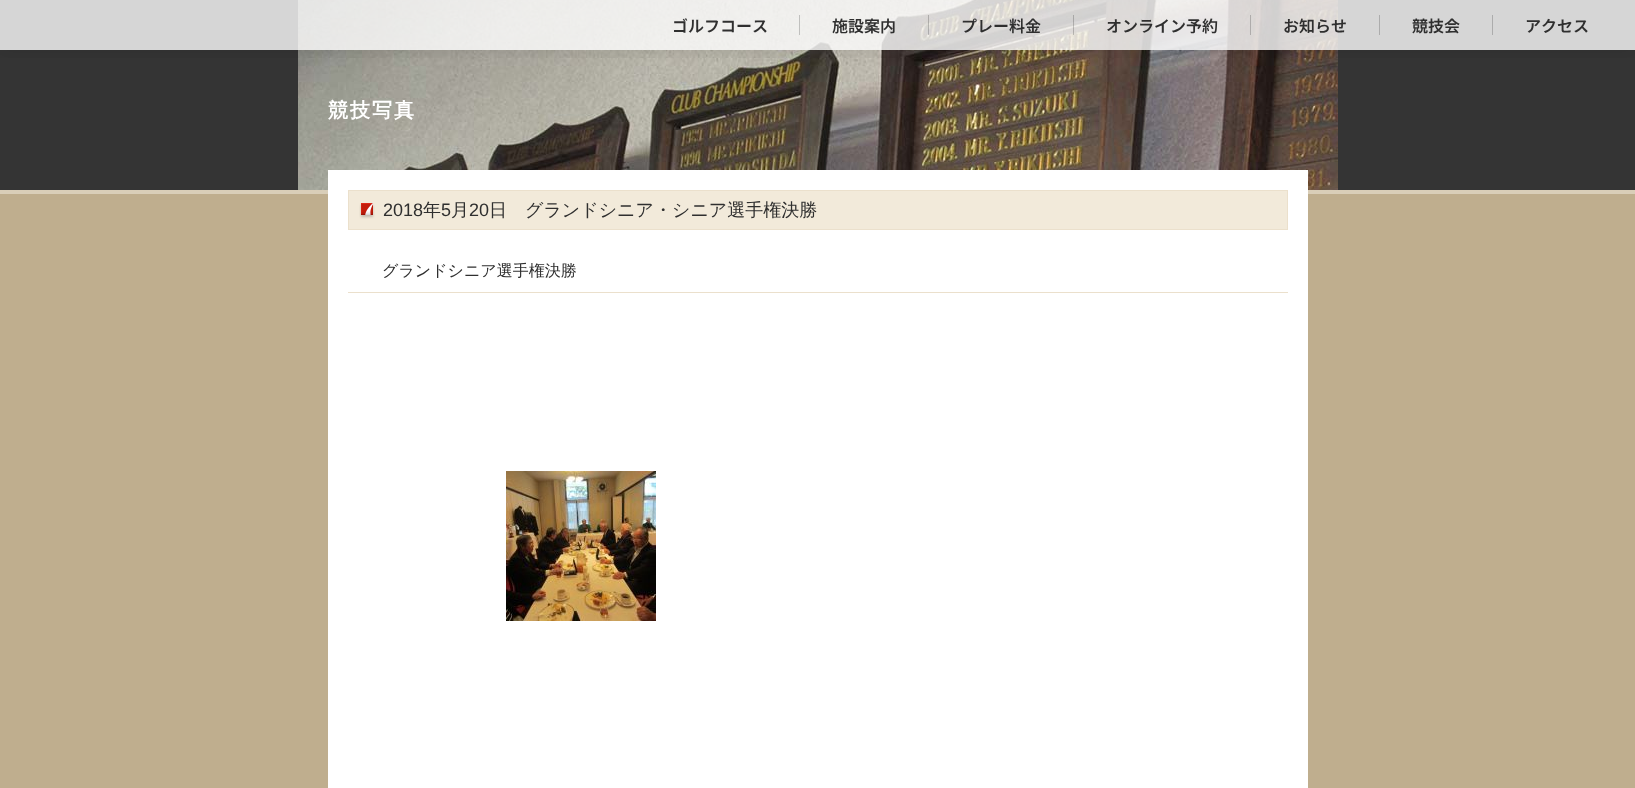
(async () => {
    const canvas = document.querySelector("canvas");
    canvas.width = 1635;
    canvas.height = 788;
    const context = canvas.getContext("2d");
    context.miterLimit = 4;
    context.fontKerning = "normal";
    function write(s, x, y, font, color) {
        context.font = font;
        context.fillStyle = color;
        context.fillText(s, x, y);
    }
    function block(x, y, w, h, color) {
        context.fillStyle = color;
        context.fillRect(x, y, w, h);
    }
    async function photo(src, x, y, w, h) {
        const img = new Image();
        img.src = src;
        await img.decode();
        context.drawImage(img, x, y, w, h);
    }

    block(0, 0, 1635, 788, "rgb(52, 52, 52)");
    await photo("media/1.png", 298, 0, 1040, 190);
    context.save();
    context.beginPath();
    context.rect(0, 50, 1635, 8);
    context.clip();
    context.fillStyle = "rgba(0, 0, 0, 0.1)";
    context.filter = "blur(10px)";
    context.beginPath();
    context.rect(0, 0, 1635, 50);
    context.fill();
    context.filter = "none";
    context.restore();
    block(0, 0, 1635, 50, "rgba(255, 255, 255, 0.8)");
    write("ゴルフコース", 672, 32, "600 16px Noto Sans JP", "rgb(47, 47, 47)");
    block(799, 15, 1, 20, "rgb(192, 192, 190)");
    write("施設案内", 832, 32, "600 16px Noto Sans JP", "rgb(47, 47, 47)");
    block(928, 15, 1, 20, "rgba(0, 0, 0, 0.2)");
    write("プレー料金", 961, 32, "600 16px Noto Sans JP", "rgb(47, 47, 47)");
    block(1073, 15, 1, 20, "rgba(0, 0, 0, 0.2)");
    write("オンライン予約", 1106, 32, "600 16px Noto Sans JP", "rgb(47, 47, 47)");
    block(1250, 15, 1, 20, "rgb(175, 172, 171)");
    write("お知らせ", 1283, 32, "600 16px Noto Sans JP", "rgb(47, 47, 47)");
    block(1379, 15, 1, 20, "rgb(172, 172, 172)");
    write("競技会", 1412, 32, "600 16px Noto Sans JP", "rgb(47, 47, 47)");
    block(1492, 15, 1, 20, "rgb(172, 172, 172)");
    write("アクセス", 1525, 32, "600 16px Noto Sans JP", "rgb(47, 47, 47)");
    block(0, 194, 1635, 594, "rgb(191, 174, 142)");
    block(0, 190, 1635, 4, "rgb(217, 206, 184)");
    block(328, 170, 980, 618, "rgb(255, 255, 255)");
    context.letterSpacing = "2px";
    write("競技写真", 328, 117, "bold 20px WenQuanYi Zen Hei", "rgb(255, 255, 255)");
    block(349, 191, 938, 38, "rgb(242, 234, 218)");
    await photo("media/2.png", 359, 203, 16, 16);
    context.strokeStyle = "rgb(235, 224, 204)";
    context.strokeRect(348.5, 190.5, 939, 39);
    context.letterSpacing = "0px";
    write("2018", 383, 216, "18px Liberation Sans", "rgb(47, 47, 47)");
    write("年", 423, 216, "500 18px WenQuanYi Zen Hei", "rgb(47, 47, 47)");
    write("5", 441, 216, "18px Liberation Sans", "rgb(47, 47, 47)");
    write("月", 451, 216, "500 18px WenQuanYi Zen Hei", "rgb(47, 47, 47)");
    write("20", 469, 216, "18px Liberation Sans", "rgb(47, 47, 47)");
    write("日　グランドシニア・シニア選手権決勝", 489, 216, "500 18px WenQuanYi Zen Hei", "rgb(47, 47, 47)");
    block(348, 292, 940, 1, "rgb(235, 224, 204)");
    write("グランドシニア選手権決勝", 382, 276, "500 16px WenQuanYi Zen Hei", "rgb(47, 47, 47)");
    await photo("media/3.png", 506, 471, 150, 150);
})();
